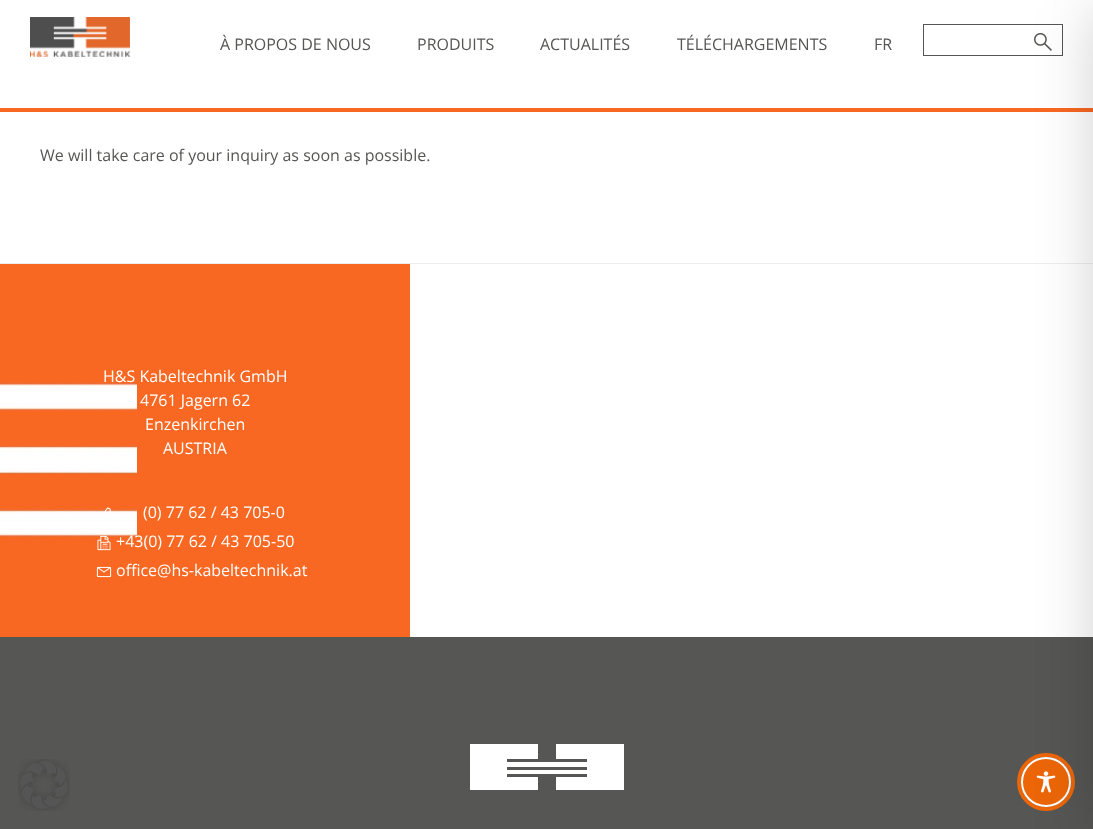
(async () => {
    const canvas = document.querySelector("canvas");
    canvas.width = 1093;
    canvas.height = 829;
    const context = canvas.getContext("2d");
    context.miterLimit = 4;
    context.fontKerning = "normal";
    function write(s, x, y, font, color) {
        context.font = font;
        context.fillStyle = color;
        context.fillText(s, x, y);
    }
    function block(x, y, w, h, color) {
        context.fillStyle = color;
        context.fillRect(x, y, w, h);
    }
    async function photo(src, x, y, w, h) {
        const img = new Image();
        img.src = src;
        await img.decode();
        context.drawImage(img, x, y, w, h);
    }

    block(0, 0, 1093, 829, "rgb(255, 255, 255)");
    block(0, 108, 1093, 4, "rgb(248, 104, 34)");
    await photo("media/1.png", 30, 17, 100, 40);
    write("À PROPOS DE NOUS", 220, 50, "16px Open Sans", "rgb(86, 86, 84)");
    write("PRODUITS", 417, 50, "16px Open Sans", "rgb(86, 86, 84)");
    write("ACTUALITÉS", 540, 50, "16px Open Sans", "rgb(86, 86, 84)");
    write("TÉLÉCHARGEMENTS", 677, 50, "16px Open Sans", "rgb(86, 86, 84)");
    write("FR", 874, 50, "16px Open Sans", "rgb(86, 86, 84)");
    context.strokeStyle = "rgb(86, 86, 84)";
    context.strokeRect(923.5, 24.5, 139, 31);
    await photo("media/2.png", 1034, 33, 18, 18);
    write("We will take care of your inquiry as soon as possible.", 40, 161, "16px Open Sans", "rgb(86, 86, 84)");
    block(0, 263, 1093, 1, "rgb(238, 238, 238)");
    block(0, 264, 410, 373, "rgb(248, 104, 34)");
    await photo("media/3.png", 0, 383, 137, 160);
    write("H&S Kabeltechnik GmbH", 103, 382, "16px Open Sans", "rgb(255, 255, 255)");
    write("4761 Jagern 62", 140, 406, "16px Open Sans", "rgb(255, 255, 255)");
    write("Enzenkirchen", 145, 430, "16px Open Sans", "rgb(255, 255, 255)");
    write("AUSTRIA", 163, 454, "16px Open Sans", "rgb(255, 255, 255)");
    await photo("media/4.png", 104, 507, 7, 6);
    write("(0) 77 62 / 43 705-0", 143, 518, "16px Open Sans", "rgb(255, 255, 255)");
    await photo("media/5.png", 97, 535, 14, 16);
    write("+43(0) 77 62 / 43 705-50", 116, 547, "16px Open Sans", "rgb(255, 255, 255)");
    await photo("media/6.png", 96, 566, 16, 12);
    write("office@hs-kabeltechnik.at", 116, 576, "16px Open Sans", "rgb(255, 255, 255)");
    block(0, 637, 1093, 192, "rgb(86, 86, 84)");
    context.fillStyle = "rgb(255, 255, 255)";
    context.beginPath();
    context.moveTo(587, 774);
    context.lineTo(587, 777);
    context.lineTo(556, 777);
    context.lineTo(556, 790);
    context.lineTo(624, 790);
    context.lineTo(624, 744);
    context.lineTo(556, 744);
    context.lineTo(556, 759);
    context.lineTo(587, 759);
    context.lineTo(587, 762);
    context.lineTo(507, 762);
    context.lineTo(507, 759);
    context.lineTo(538, 759);
    context.lineTo(538, 744);
    context.lineTo(470, 744);
    context.lineTo(470, 790);
    context.lineTo(538, 790);
    context.lineTo(538, 777);
    context.lineTo(507, 777);
    context.lineTo(507, 774);
    context.closePath();
    context.moveTo(507, 770);
    context.lineTo(507, 767);
    context.lineTo(587, 767);
    context.lineTo(587, 770);
    context.closePath();
    context.fill();
    context.beginPath();
    context.arc(1046, 782, 27, 0, Math.PI * 2);
    context.strokeStyle = "rgb(236, 102, 8)";
    context.lineWidth = 4;
    context.stroke();
    context.fillStyle = "rgb(236, 102, 8)";
    context.beginPath();
    context.arc(1046, 782, 24, 0, Math.PI * 2);
    context.fill();
    context.strokeStyle = "rgb(255, 255, 255)";
    context.lineWidth = 2;
    context.stroke();
    await photo("media/8.png", 1036, 771, 20, 22);
    context.fillStyle = "rgba(0, 0, 0, 0.2)";
    context.filter = "blur(30px)";
    context.beginPath();
    context.rect(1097, 10, 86, 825);
    context.fill();
    context.filter = "none";
    await photo("media/7.png", 18, 759, 52, 52);
})();
